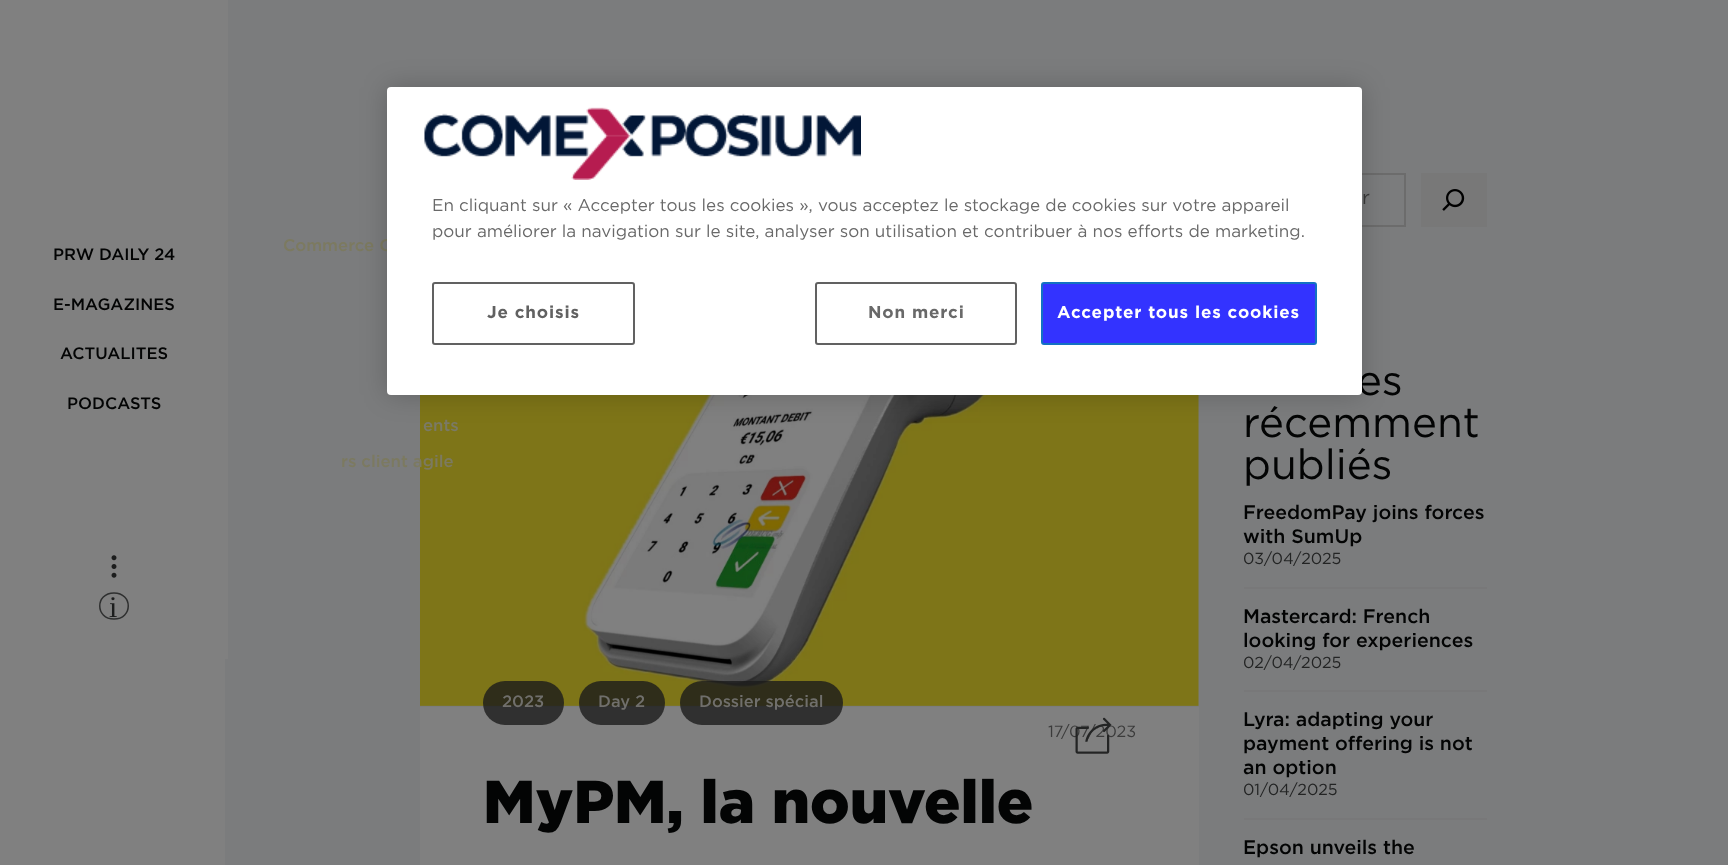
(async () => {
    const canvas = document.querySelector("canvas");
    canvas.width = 1728;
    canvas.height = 865;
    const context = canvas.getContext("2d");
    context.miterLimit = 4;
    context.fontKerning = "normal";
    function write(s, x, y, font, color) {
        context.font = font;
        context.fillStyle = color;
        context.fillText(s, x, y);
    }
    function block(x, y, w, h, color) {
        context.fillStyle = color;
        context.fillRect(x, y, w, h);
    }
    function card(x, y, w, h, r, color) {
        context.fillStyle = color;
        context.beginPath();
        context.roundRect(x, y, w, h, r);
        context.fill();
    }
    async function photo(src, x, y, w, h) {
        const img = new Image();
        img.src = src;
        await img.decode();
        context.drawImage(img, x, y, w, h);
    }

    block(0, 0, 1728, 865, "rgb(128, 128, 128)");
    block(225, 0, 1503, 865, "rgb(123, 124, 125)");
    block(225, 0, 3, 659, "rgb(128, 128, 128)");
    write("ACTUALITES", 60, 359, "500 16.5px Gotham", "rgb(3, 4, 4)");
    write("Commerce O", 283, 251, "500 16.75px Gotham", "rgb(124, 122, 96)");
    await photo("media/2.png", 420, 395, 779, 311);
    write("ents", 423, 431, "500 16.75px Gotham", "rgb(123, 122, 102)");
    write("rs client agile", 341, 467, "500 16.75px Gotham", "rgb(124, 122, 96)");
    write("PRW DAILY 24", 53, 260, "500 16.5px Gotham", "rgb(3, 4, 4)");
    write("E-MAGAZINES", 53, 310, "500 16.5px Gotham", "rgb(3, 4, 4)");
    write("PODCASTS", 67, 409, "500 16.5px Gotham", "rgb(3, 4, 4)");
    await photo("media/1.png", 111, 555, 6, 23);
    context.beginPath();
    context.moveTo(114, 593);
    context.bezierCurveTo(133, 593, 133, 619, 114, 619);
    context.bezierCurveTo(95, 619, 95, 593, 114, 593);
    context.closePath();
    context.strokeStyle = "rgb(46, 47, 47)";
    context.lineWidth = 1.5;
    context.stroke();
    write("i", 109, 617, "30px Liberation Serif", "rgb(28, 29, 29)");
    block(420, 707, 779, 158, "rgb(128, 128, 128)");
    card(483, 681, 81, 44, 22, "rgba(27, 28, 28, 0.8)");
    write("2023", 502, 707, "500 16.5px Gotham", "rgb(112, 111, 108)");
    card(579, 681, 86, 44, 22, "rgba(27, 28, 28, 0.8)");
    write("Day 2", 598, 707, "500 16.5px Gotham", "rgb(112, 111, 108)");
    card(680, 681, 163, 44, 22, "rgba(27, 28, 28, 0.8)");
    write("Dossier spécial", 699, 707, "500 16.5px Gotham", "rgb(112, 111, 108)");
    write("17/07/2023", 1048, 737, "16.25px Gotham", "rgb(59, 59, 59)");
    await photo("media/3.png", 1075, 717, 37, 37);
    write("MyPM, la nouvelle", 483, 823, "900 60.5px Gotham", "rgb(3, 4, 4)");
    context.strokeStyle = "rgb(108, 108, 108)";
    context.lineWidth = 2;
    context.strokeRect(1245, 174, 160, 52);
    write("r", 1362, 204, "19.5px Gotham", "rgb(59, 59, 59)");
    block(1421, 173, 66, 54, "rgb(120, 120, 120)");
    await photo("media/4.png", 1442, 189, 23, 22);
    write("es", 1357, 395, "42px Gotham", "rgb(3, 4, 4)");
    write("récemment", 1243, 437, "42px Gotham", "rgb(3, 4, 4)");
    write("publiés", 1243, 479, "42px Gotham", "rgb(3, 4, 4)");
    block(1244, 587, 243, 2, "rgb(120, 120, 121)");
    write("FreedomPay joins forces", 1243, 519, "500 19.5px Gotham", "rgb(3, 4, 4)");
    write("with SumUp", 1243, 543, "500 19.5px Gotham", "rgb(3, 4, 4)");
    write("03/04/2025", 1243, 564, "16px Gotham", "rgb(35, 36, 36)");
    block(1244, 690, 243, 2, "rgb(120, 120, 121)");
    write("Mastercard: French", 1243, 623, "500 19.5px Gotham", "rgb(3, 4, 4)");
    write("looking for experiences", 1243, 647, "500 19.5px Gotham", "rgb(3, 4, 4)");
    write("02/04/2025", 1243, 668, "16px Gotham", "rgb(35, 36, 36)");
    block(1244, 818, 243, 2, "rgb(120, 120, 121)");
    write("Lyra: adapting your", 1243, 726, "500 19.5px Gotham", "rgb(3, 4, 4)");
    write("payment offering is not", 1243, 750, "500 19.5px Gotham", "rgb(3, 4, 4)");
    write("an option", 1243, 774, "500 19.5px Gotham", "rgb(3, 4, 4)");
    write("01/04/2025", 1243, 795, "16px Gotham", "rgb(35, 36, 36)");
    write("Epson unveils the", 1243, 854, "500 19.5px Gotham", "rgb(3, 4, 4)");
    context.fillStyle = "rgba(0, 0, 0, 0.2)";
    context.filter = "blur(13.5px)";
    context.beginPath();
    context.roundRect(387, 87, 975, 308, 4);
    context.fill();
    context.filter = "none";
    card(387, 87, 975, 308, 4, "rgb(255, 255, 255)");
    await photo("media/5.png", 424, 107, 437, 73);
    write("En cliquant sur « Accepter tous les cookies », vous acceptez le stockage de cookies sur votre appareil", 432, 211, "17.07px Gotham", "rgb(105, 105, 105)");
    write("pour améliorer la navigation sur le site, analyser son utilisation et contribuer à nos efforts de marketing.", 432, 237, "17.07px Gotham", "rgb(105, 105, 105)");
    context.beginPath();
    context.roundRect(433, 283, 201, 61, 2);
    context.strokeStyle = "rgb(97, 97, 97)";
    context.stroke();
    context.letterSpacing = "0.85px";
    write("Je choisis", 487, 318, "bold 17.07px Gotham", "rgb(97, 97, 97)");
    context.beginPath();
    context.roundRect(816, 283, 200, 61, 2);
    context.stroke();
    write("Non merci", 868, 318, "bold 17.07px Gotham", "rgb(105, 105, 105)");
    context.fillStyle = "rgb(51, 51, 255)";
    context.beginPath();
    context.roundRect(1042, 283, 274, 61, 2);
    context.fill();
    context.strokeStyle = "rgb(19, 113, 195)";
    context.stroke();
    write("Accepter tous les cookies", 1057, 318, "bold 17.07px Gotham", "rgb(255, 255, 255)");
})();
